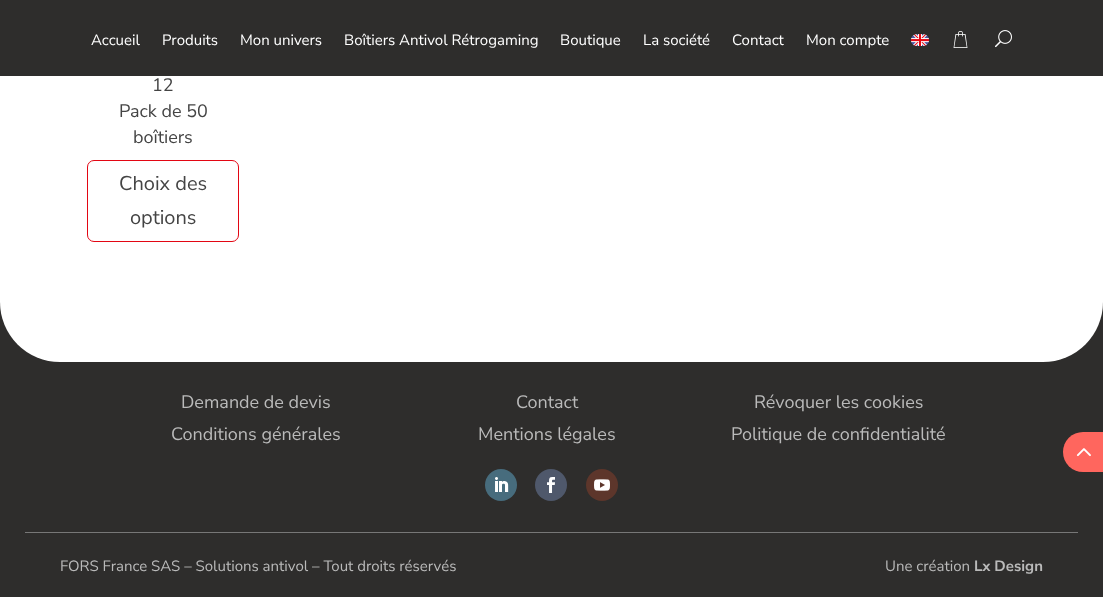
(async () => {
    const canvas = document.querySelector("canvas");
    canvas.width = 1103;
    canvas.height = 597;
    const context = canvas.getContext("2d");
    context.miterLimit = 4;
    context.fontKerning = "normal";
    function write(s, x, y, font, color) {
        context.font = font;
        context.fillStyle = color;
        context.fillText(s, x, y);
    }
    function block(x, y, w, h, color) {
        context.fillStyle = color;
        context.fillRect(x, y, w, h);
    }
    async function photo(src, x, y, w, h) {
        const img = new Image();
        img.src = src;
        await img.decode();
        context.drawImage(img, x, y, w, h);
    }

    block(0, 0, 1103, 597, "rgb(255, 255, 255)");
    block(0, 0, 1103, 76, "rgb(46, 45, 44)");
    write("Accueil", 91, 45, "200 15px Nunito Sans", "rgb(255, 255, 255)");
    write("Produits", 162, 45, "200 15px Nunito Sans", "rgb(255, 255, 255)");
    write("Mon univers", 240, 45, "200 15px Nunito Sans", "rgb(255, 255, 255)");
    write("Boîtiers Antivol Rétrogaming", 344, 45, "200 15px Nunito Sans", "rgb(255, 255, 255)");
    write("Boutique", 560, 45, "200 15px Nunito Sans", "rgb(255, 255, 255)");
    write("La société", 643, 45, "200 15px Nunito Sans", "rgb(255, 255, 255)");
    write("Contact", 732, 45, "200 15px Nunito Sans", "rgb(255, 255, 255)");
    write("Mon compte", 806, 45, "200 15px Nunito Sans", "rgb(255, 255, 255)");
    await photo("media/1.png", 911, 34, 18, 12);
    await photo("media/2.png", 953, 31, 15, 17);
    await photo("media/3.png", 995, 30, 17, 18);
    write("12", 152, 91, "200 18px Nunito Sans", "rgb(68, 68, 68)");
    write("Pack de 50", 119, 117, "200 18px Nunito Sans", "rgb(68, 68, 68)");
    write("boîtiers", 133, 143, "200 18px Nunito Sans", "rgb(68, 68, 68)");
    context.beginPath();
    context.roundRect(87.5, 160.5, 151, 81, 6.5);
    context.strokeStyle = "rgb(227, 6, 19)";
    context.stroke();
    write("Choix des", 119, 190, "200 20px Nunito Sans", "rgb(68, 68, 68)");
    write("options", 130, 224, "200 20px Nunito Sans", "rgb(68, 68, 68)");
    block(0, 302, 1103, 295, "rgb(46, 45, 44)");
    context.fillStyle = "rgb(255, 255, 255)";
    context.beginPath();
    context.roundRect(0, 302, 1103, 60, [0, 0, 60, 60]);
    context.fill();
    write("Demande de devis", 181, 408, "200 18px Nunito Sans", "rgb(186, 186, 186)");
    write("Contact", 516, 408, "200 18px Nunito Sans", "rgb(186, 186, 186)");
    write("Révoquer les cookies", 754, 408, "200 18px Nunito Sans", "rgb(186, 186, 186)");
    write("Conditions générales", 171, 440, "200 18px Nunito Sans", "rgb(186, 186, 186)");
    write("Mentions légales", 478, 440, "200 18px Nunito Sans", "rgb(186, 186, 186)");
    write("Politique de confidentialité", 731, 440, "200 18px Nunito Sans", "rgb(186, 186, 186)");
    context.fillStyle = "rgb(71, 108, 125)";
    context.beginPath();
    context.arc(501, 485, 16, 0, Math.PI * 2);
    context.fill();
    await photo("media/4.png", 495, 477, 14, 15);
    context.fillStyle = "rgb(79, 88, 107)";
    context.beginPath();
    context.arc(551, 485, 16, 0, Math.PI * 2);
    context.fill();
    await photo("media/5.png", 547, 477, 8, 16);
    context.fillStyle = "rgb(93, 54, 43)";
    context.beginPath();
    context.arc(602, 485, 16, 0, Math.PI * 2);
    context.fill();
    await photo("media/6.png", 594, 479, 16, 12);
    block(25, 532, 1053, 1, "rgb(119, 119, 119)");
    write("FORS France SAS – Solutions antivol – Tout droits réservés", 60, 571, "200 15px Nunito Sans", "rgb(186, 186, 186)");
    write("Une création", 885, 571, "200 15px Nunito Sans", "rgb(186, 186, 186)");
    write("Lx Design", 974, 571, "200 15px 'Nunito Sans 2'", "rgb(186, 186, 186)");
    context.fillStyle = "rgb(255, 102, 94)";
    context.beginPath();
    context.roundRect(1063, 432, 40, 40, [20, 0, 0, 20]);
    context.fill();
    await photo("media/7.png", 1076, 448, 15, 9);
})();
